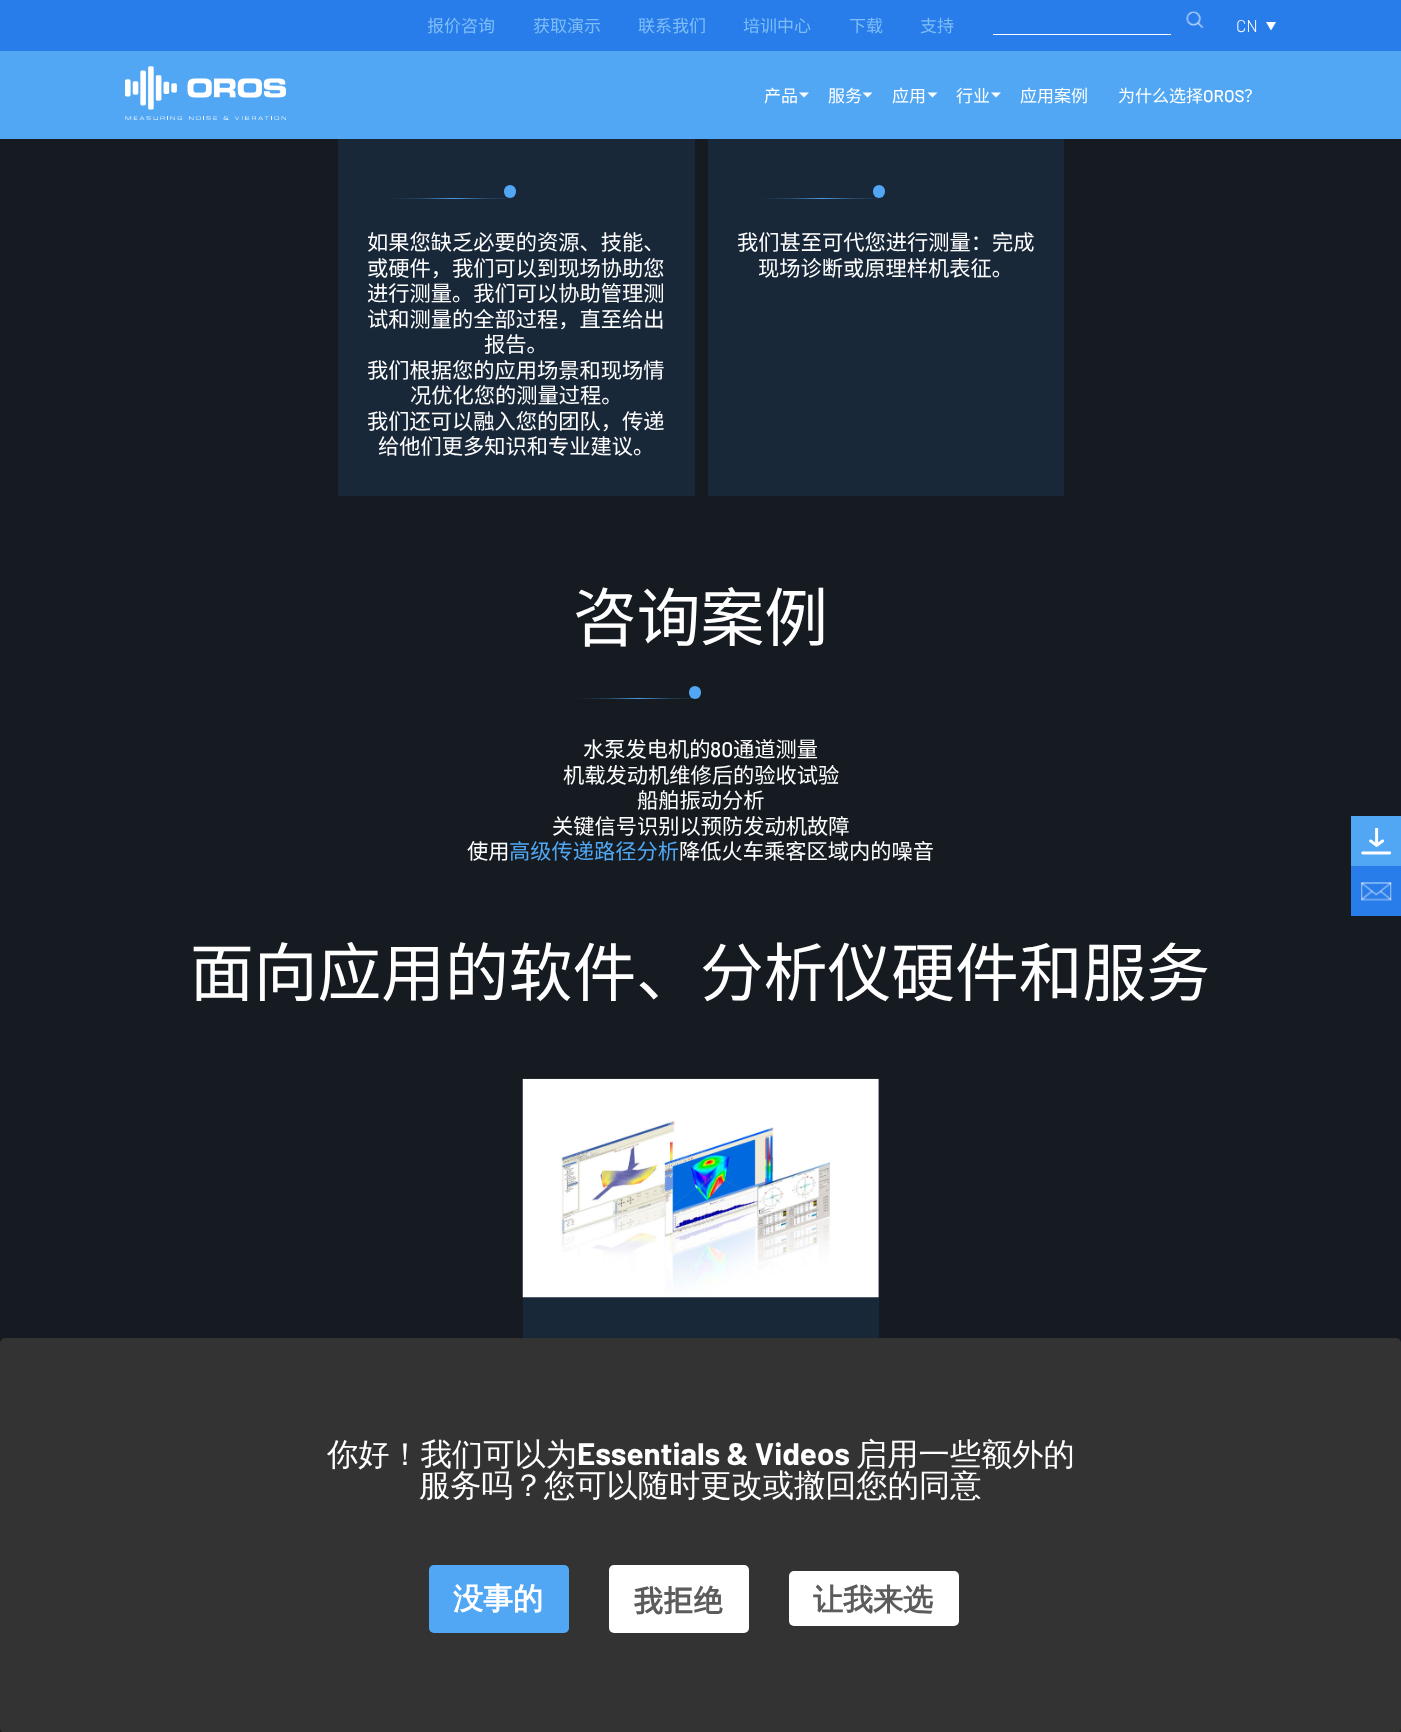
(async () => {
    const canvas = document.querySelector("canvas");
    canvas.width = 1401;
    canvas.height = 1732;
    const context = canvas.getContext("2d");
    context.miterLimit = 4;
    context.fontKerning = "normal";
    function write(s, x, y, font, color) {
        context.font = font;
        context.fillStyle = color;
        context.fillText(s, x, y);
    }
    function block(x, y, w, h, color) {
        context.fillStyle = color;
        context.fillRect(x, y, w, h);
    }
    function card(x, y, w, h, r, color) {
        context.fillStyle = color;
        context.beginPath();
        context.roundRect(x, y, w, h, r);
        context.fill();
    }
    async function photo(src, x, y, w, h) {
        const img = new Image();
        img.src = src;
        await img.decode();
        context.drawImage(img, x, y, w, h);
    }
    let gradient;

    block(0, 0, 1401, 1732, "rgb(21, 27, 32)");
    block(0, 0, 1401, 51, "rgb(41, 125, 235)");
    context.save();
    context.beginPath();
    context.rect(428, 5, 67, 41);
    context.clip();
    write("报价咨询", 427, 32, "17px Noto Sans CJK SC", "rgb(126, 190, 247)");
    context.restore();
    write("获取演示", 533, 32, "17px Noto Sans CJK SC", "rgb(126, 190, 247)");
    write("联系我们", 638, 32, "17px Noto Sans CJK SC", "rgb(126, 190, 247)");
    write("培训中心", 743, 32, "17px Noto Sans CJK SC", "rgb(126, 190, 247)");
    write("下载", 849, 32, "17px Noto Sans CJK SC", "rgb(126, 190, 247)");
    write("支持", 920, 32, "17px Noto Sans CJK SC", "rgb(126, 190, 247)");
    await photo("media/1.png", 1186, 11, 18, 17);
    block(993, 34, 178, 1, "rgb(255, 255, 255)");
    write("CN", 1236, 32, "300 17px Barlow", "rgb(255, 255, 255)");
    context.beginPath();
    context.moveTo(1266, 22);
    context.lineTo(1276, 22);
    context.lineTo(1271, 30.5);
    context.closePath();
    context.fill();
    block(0, 51, 1401, 88, "rgb(81, 167, 243)");
    await photo("media/2.png", 125, 66, 161, 55);
    write("产品", 764, 102, "17px Noto Sans CJK SC", "rgb(255, 255, 255)");
    context.beginPath();
    context.moveTo(799, 92.5);
    context.lineTo(809, 92.5);
    context.lineTo(804, 97.5);
    context.closePath();
    context.fill();
    write("服务", 828, 102, "17px Noto Sans CJK SC", "rgb(255, 255, 255)");
    context.beginPath();
    context.moveTo(862.5, 92.5);
    context.lineTo(872.5, 92.5);
    context.lineTo(867.5, 97.5);
    context.closePath();
    context.fill();
    write("应用", 892, 102, "17px Noto Sans CJK SC", "rgb(255, 255, 255)");
    context.beginPath();
    context.moveTo(927.5, 92.5);
    context.lineTo(937.5, 92.5);
    context.lineTo(932.5, 97.5);
    context.closePath();
    context.fill();
    write("行业", 956, 102, "17px Noto Sans CJK SC", "rgb(255, 255, 255)");
    context.beginPath();
    context.moveTo(991, 92.5);
    context.lineTo(1001, 92.5);
    context.lineTo(996, 97.5);
    context.closePath();
    context.fill();
    write("应用案例", 1020, 102, "17px Noto Sans CJK SC", "rgb(255, 255, 255)");
    write("为什么选择", 1118, 102, "17px Noto Sans CJK SC", "rgb(255, 255, 255)");
    write("OROS", 1203, 102, "500 17px Barlow", "rgb(255, 255, 255)");
    write("？", 1244, 102, "17px Noto Sans CJK SC", "rgb(255, 255, 255)");
    block(338, 139, 357, 357, "rgb(25, 40, 57)");
    card(504, 185, 12, 13, 6, "rgb(81, 167, 243)");
    gradient = context.createLinearGradient(391, 198, 516, 198);
    gradient.addColorStop(0, "rgb(25, 40, 57)");
    gradient.addColorStop(0.25, "rgb(39, 72, 104)");
    gradient.addColorStop(0.5, "rgb(75, 154, 224)");
    gradient.addColorStop(0.75, "rgb(39, 72, 104)");
    gradient.addColorStop(1, "rgb(25, 40, 57)");
    context.fillStyle = gradient;
    context.fillRect(391, 198, 125, 1);
    write("如果您缺乏必要的资源、技能、", 367, 250, "21.25px Noto Sans CJK SC", "rgb(255, 255, 255)");
    write("或硬件，我们可以到现场协助您", 367, 276, "21.25px Noto Sans CJK SC", "rgb(255, 255, 255)");
    write("进行测量。我们可以协助管理测", 367, 301, "21.25px Noto Sans CJK SC", "rgb(255, 255, 255)");
    write("试和测量的全部过程，直至给出", 367, 327, "21.25px Noto Sans CJK SC", "rgb(255, 255, 255)");
    write("报告。", 484, 352, "21.25px Noto Sans CJK SC", "rgb(255, 255, 255)");
    write("我们根据您的应用场景和现场情", 367, 378, "21.25px Noto Sans CJK SC", "rgb(255, 255, 255)");
    write("况优化您的测量过程。", 410, 403, "21.25px Noto Sans CJK SC", "rgb(255, 255, 255)");
    write("我们还可以融入您的团队，传递", 367, 429, "21.25px Noto Sans CJK SC", "rgb(255, 255, 255)");
    write("给他们更多知识和专业建议。", 378, 454, "21.25px Noto Sans CJK SC", "rgb(255, 255, 255)");
    block(708, 139, 356, 357, "rgb(25, 40, 57)");
    card(873, 185, 12, 13, 6, "rgb(81, 167, 243)");
    gradient = context.createLinearGradient(760, 198, 885, 198);
    gradient.addColorStop(0, "rgb(25, 40, 57)");
    gradient.addColorStop(0.25, "rgb(39, 72, 104)");
    gradient.addColorStop(0.5, "rgb(75, 154, 224)");
    gradient.addColorStop(0.75, "rgb(39, 72, 104)");
    gradient.addColorStop(1, "rgb(25, 40, 57)");
    context.fillStyle = gradient;
    context.fillRect(760, 198, 125, 1);
    write("我们甚至可代您进行测量：完成", 737, 250, "21.25px Noto Sans CJK SC", "rgb(255, 255, 255)");
    write("现场诊断或原理样机表征。", 758, 276, "21.25px Noto Sans CJK SC", "rgb(255, 255, 255)");
    write("咨询案例", 573, 641, "63.75px Noto Sans CJK SC", "rgb(255, 255, 255)");
    gradient = context.createLinearGradient(576, 698, 701, 698);
    gradient.addColorStop(0, "rgb(21, 27, 32)");
    gradient.addColorStop(0.25, "rgb(36, 62, 85)");
    gradient.addColorStop(0.5, "rgb(75, 153, 222)");
    gradient.addColorStop(0.75, "rgb(36, 62, 85)");
    gradient.addColorStop(1, "rgb(21, 27, 32)");
    context.fillStyle = gradient;
    context.fillRect(576, 698, 125, 1);
    card(689, 686, 12, 13, 6, "rgb(81, 167, 243)");
    write("水泵发电机的", 583, 757, "21.25px Noto Sans CJK SC", "rgb(255, 255, 255)");
    write("80", 710, 757, "500 21.25px Barlow", "rgb(255, 255, 255)");
    write("通道测量", 733, 757, "21.25px Noto Sans CJK SC", "rgb(255, 255, 255)");
    write("机载发动机维修后的验收试验", 563, 783, "21.25px Noto Sans CJK SC", "rgb(255, 255, 255)");
    write("船舶振动分析", 637, 808, "21.25px Noto Sans CJK SC", "rgb(255, 255, 255)");
    write("关键信号识别以预防发动机故障", 552, 834, "21.25px Noto Sans CJK SC", "rgb(255, 255, 255)");
    write("使用", 467, 859, "21.25px Noto Sans CJK SC", "rgb(255, 255, 255)");
    write("高级传递路径分析", 509, 859, "21.25px Noto Sans CJK SC", "rgb(81, 167, 243)");
    write("降低火车乘客区域内的噪音", 679, 859, "21.25px Noto Sans CJK SC", "rgb(255, 255, 255)");
    write("面向应用的软件、分析仪硬件和服务", 190, 996, "63.75px Noto Sans CJK SC", "rgb(255, 255, 255)");
    block(523, 1079, 356, 259, "rgb(25, 40, 57)");
    await photo("media/3.png", 522, 1078, 357, 220);
    block(1351, 816, 50, 50, "rgb(81, 167, 243)");
    await photo("media/4.png", 1361, 828, 30, 27);
    block(1351, 866, 50, 50, "rgb(41, 125, 235)");
    await photo("media/5.png", 1361, 882, 31, 19);
    card(0, 1338, 1401, 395, 5, "rgb(51, 51, 51)");
    write("你好！我们可以为", 327, 1465, "500 31.25px WenQuanYi Zen Hei", "rgb(255, 255, 255)");
    write("Essentials & Videos", 577, 1465, "bold 31.25px Barlow", "rgb(255, 255, 255)");
    write("启用一些额外的", 856, 1465, "500 31.25px WenQuanYi Zen Hei", "rgb(255, 255, 255)");
    write("服务吗？您可以随时更改或撤回您的同意", 419, 1496, "500 31.25px WenQuanYi Zen Hei", "rgb(255, 255, 255)");
    card(429, 1565, 140, 68, 5, "rgb(81, 167, 243)");
    write("没事的", 453, 1609, "bold 30px WenQuanYi Zen Hei", "rgb(255, 255, 255)");
    card(609, 1565, 140, 68, 5, "rgb(255, 255, 255)");
    write("我拒绝", 633, 1612, "bold 30px Noto Sans CJK SC", "rgb(92, 92, 92)");
    card(789, 1571, 170, 55, 5, "rgb(255, 255, 255)");
    write("让我来选", 813, 1610, "bold 30px WenQuanYi Zen Hei", "rgb(92, 92, 92)");
})();
